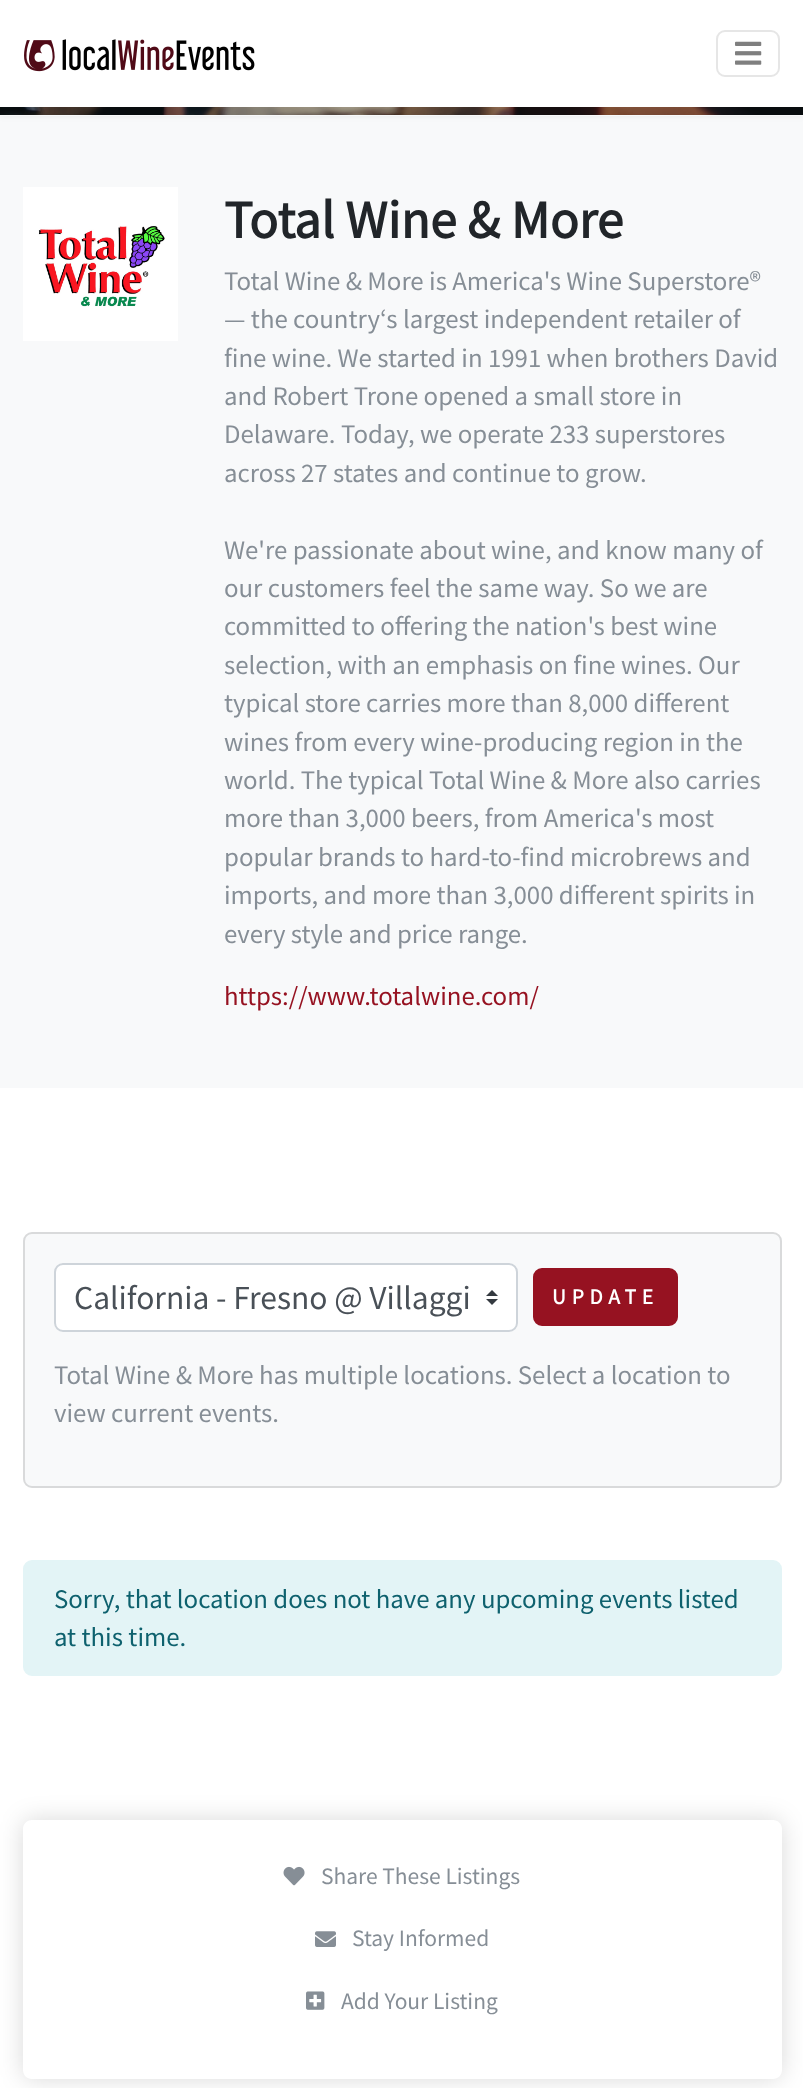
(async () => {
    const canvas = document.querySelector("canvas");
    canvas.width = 803;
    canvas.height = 2088;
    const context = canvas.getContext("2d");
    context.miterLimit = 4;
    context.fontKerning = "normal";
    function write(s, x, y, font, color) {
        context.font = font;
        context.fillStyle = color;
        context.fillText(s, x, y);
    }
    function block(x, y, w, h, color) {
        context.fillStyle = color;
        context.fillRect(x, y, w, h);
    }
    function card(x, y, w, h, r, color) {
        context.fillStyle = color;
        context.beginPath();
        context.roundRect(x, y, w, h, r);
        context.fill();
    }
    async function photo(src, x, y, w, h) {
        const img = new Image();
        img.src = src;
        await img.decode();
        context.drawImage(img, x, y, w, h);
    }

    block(0, 0, 803, 2088, "rgb(255, 255, 255)");
    block(0, 116, 803, 972, "rgb(248, 249, 250)");
    context.fillStyle = "rgba(0, 0, 0, 0.07)";
    context.filter = "blur(3px)";
    context.beginPath();
    context.rect(0, -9, 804, 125);
    context.fill();
    context.filter = "none";
    block(0, 115, 803, 1, "rgb(248, 249, 250)");
    await photo("media/1.png", 0, 107, 803, 8);
    block(0, 0, 803, 107, "rgb(255, 255, 255)");
    await photo("media/2.png", 24, 39, 231, 33);
    context.beginPath();
    context.roundRect(717, 31, 62, 45, 8);
    context.strokeStyle = "rgb(230, 230, 230)";
    context.lineWidth = 2;
    context.stroke();
    await photo("media/3.png", 735, 41, 27, 24);
    await photo("media/4.png", 23, 187, 155, 154);
    write("Total Wine & More", 224, 238, "bold 48px Noto Sans JP", "rgb(33, 37, 41)");
    write("Total Wine & More is America's Wine Superstore®", 224, 290, "100 24px Noto Sans JP", "rgb(134, 142, 150)");
    write("— the country‘s largest independent retailer of", 224, 328, "100 24px Noto Sans JP", "rgb(134, 142, 150)");
    write("fine wine. We started in 1991 when brothers David", 224, 367, "100 24px Noto Sans JP", "rgb(134, 142, 150)");
    write("and Robert Trone opened a small store in", 224, 405, "100 24px Noto Sans JP", "rgb(134, 142, 150)");
    write("Delaware. Today, we operate 233 superstores", 224, 443, "100 24px Noto Sans JP", "rgb(134, 142, 150)");
    write("across 27 states and continue to grow.", 224, 482, "100 24px Noto Sans JP", "rgb(134, 142, 150)");
    write("We're passionate about wine, and know many of", 224, 559, "100 24px Noto Sans JP", "rgb(134, 142, 150)");
    write("our customers feel the same way. So we are", 224, 597, "100 24px Noto Sans JP", "rgb(134, 142, 150)");
    write("committed to offering the nation's best wine", 224, 635, "100 24px Noto Sans JP", "rgb(134, 142, 150)");
    write("selection, with an emphasis on fine wines. Our", 224, 674, "100 24px Noto Sans JP", "rgb(134, 142, 150)");
    write("typical store carries more than 8,000 different", 224, 712, "100 24px Noto Sans JP", "rgb(134, 142, 150)");
    write("wines from every wine-producing region in the", 224, 751, "100 24px Noto Sans JP", "rgb(134, 142, 150)");
    write("world. The typical Total Wine & More also carries", 224, 789, "100 24px Noto Sans JP", "rgb(134, 142, 150)");
    write("more than 3,000 beers, from America's most", 224, 827, "100 24px Noto Sans JP", "rgb(134, 142, 150)");
    write("popular brands to hard-to-find microbrews and", 224, 866, "100 24px Noto Sans JP", "rgb(134, 142, 150)");
    write("imports, and more than 3,000 different spirits in", 224, 904, "100 24px Noto Sans JP", "rgb(134, 142, 150)");
    write("every style and price range.", 224, 943, "100 24px Noto Sans JP", "rgb(134, 142, 150)");
    write("https://www.totalwine.com/", 224, 1005, "100 24px Noto Sans JP", "rgb(150, 18, 33)");
    card(23, 1232, 759, 256, 9, "rgb(248, 249, 250)");
    context.beginPath();
    context.roundRect(24, 1233, 757, 254, 8);
    context.strokeStyle = "rgba(0, 0, 0, 0.12)";
    context.stroke();
    card(54, 1263, 464, 69, 9, "rgb(255, 255, 255)");
    await photo("media/5.png", 486, 1290, 12, 15);
    context.beginPath();
    context.roundRect(55, 1264, 462, 67, 8);
    context.strokeStyle = "rgb(206, 212, 218)";
    context.stroke();
    write("California - Fresno @ Villaggi", 74, 1309, "100 30px Noto Sans JP", "rgb(73, 80, 87)");
    context.fillStyle = "rgb(150, 18, 33)";
    context.beginPath();
    context.roundRect(534, 1269, 143, 56, 8);
    context.fill();
    context.strokeStyle = "rgb(150, 18, 33)";
    context.stroke();
    context.letterSpacing = "5.75px";
    write("UPDATE", 552, 1304, "bold 19.25px Noto Sans JP", "rgb(255, 255, 255)");
    context.letterSpacing = "0px";
    write("Total Wine & More has multiple locations. Select a location to", 54, 1384, "100 24px Noto Sans JP", "rgb(134, 142, 150)");
    write("view current events.", 54, 1422, "100 24px Noto Sans JP", "rgb(134, 142, 150)");
    context.fillStyle = "rgb(227, 244, 246)";
    context.beginPath();
    context.roundRect(24, 1561, 757, 114, 8);
    context.fill();
    context.strokeStyle = "rgb(227, 244, 246)";
    context.stroke();
    write("Sorry, that location does not have any upcoming events listed", 54, 1608, "100 24px Noto Sans JP", "rgb(14, 97, 110)");
    write("at this time.", 54, 1646, "100 24px Noto Sans JP", "rgb(14, 97, 110)");
    context.save();
    context.beginPath();
    context.moveTo(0, 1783);
    context.lineTo(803, 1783);
    context.lineTo(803, 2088);
    context.lineTo(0, 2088);
    context.closePath();
    context.moveTo(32, 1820);
    context.lineTo(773, 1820);
    context.bezierCurveTo(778, 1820, 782, 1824, 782, 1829);
    context.lineTo(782, 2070);
    context.bezierCurveTo(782, 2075, 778, 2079, 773, 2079);
    context.lineTo(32, 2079);
    context.bezierCurveTo(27, 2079, 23, 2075, 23, 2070);
    context.lineTo(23, 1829);
    context.bezierCurveTo(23, 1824, 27, 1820, 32, 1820);
    context.closePath();
    context.clip("evenodd");
    context.fillStyle = "rgba(0, 0, 0, 0.15)";
    context.filter = "blur(12px)";
    context.beginPath();
    context.roundRect(23, 1820, 759, 259, 9);
    context.fill();
    context.filter = "none";
    context.restore();
    await photo("media/6.png", 283, 1866, 22, 20);
    write("Share These Listings", 321, 1884, "100 21px Noto Sans JP", "rgb(134, 142, 150)");
    await photo("media/7.png", 315, 1931, 21, 16);
    write("Stay Informed", 352, 1946, "100 21px Noto Sans JP", "rgb(134, 142, 150)");
    await photo("media/8.png", 306, 1991, 19, 19);
    write("Add Your Listing", 341, 2009, "100 21px Noto Sans JP", "rgb(134, 142, 150)");
})();
